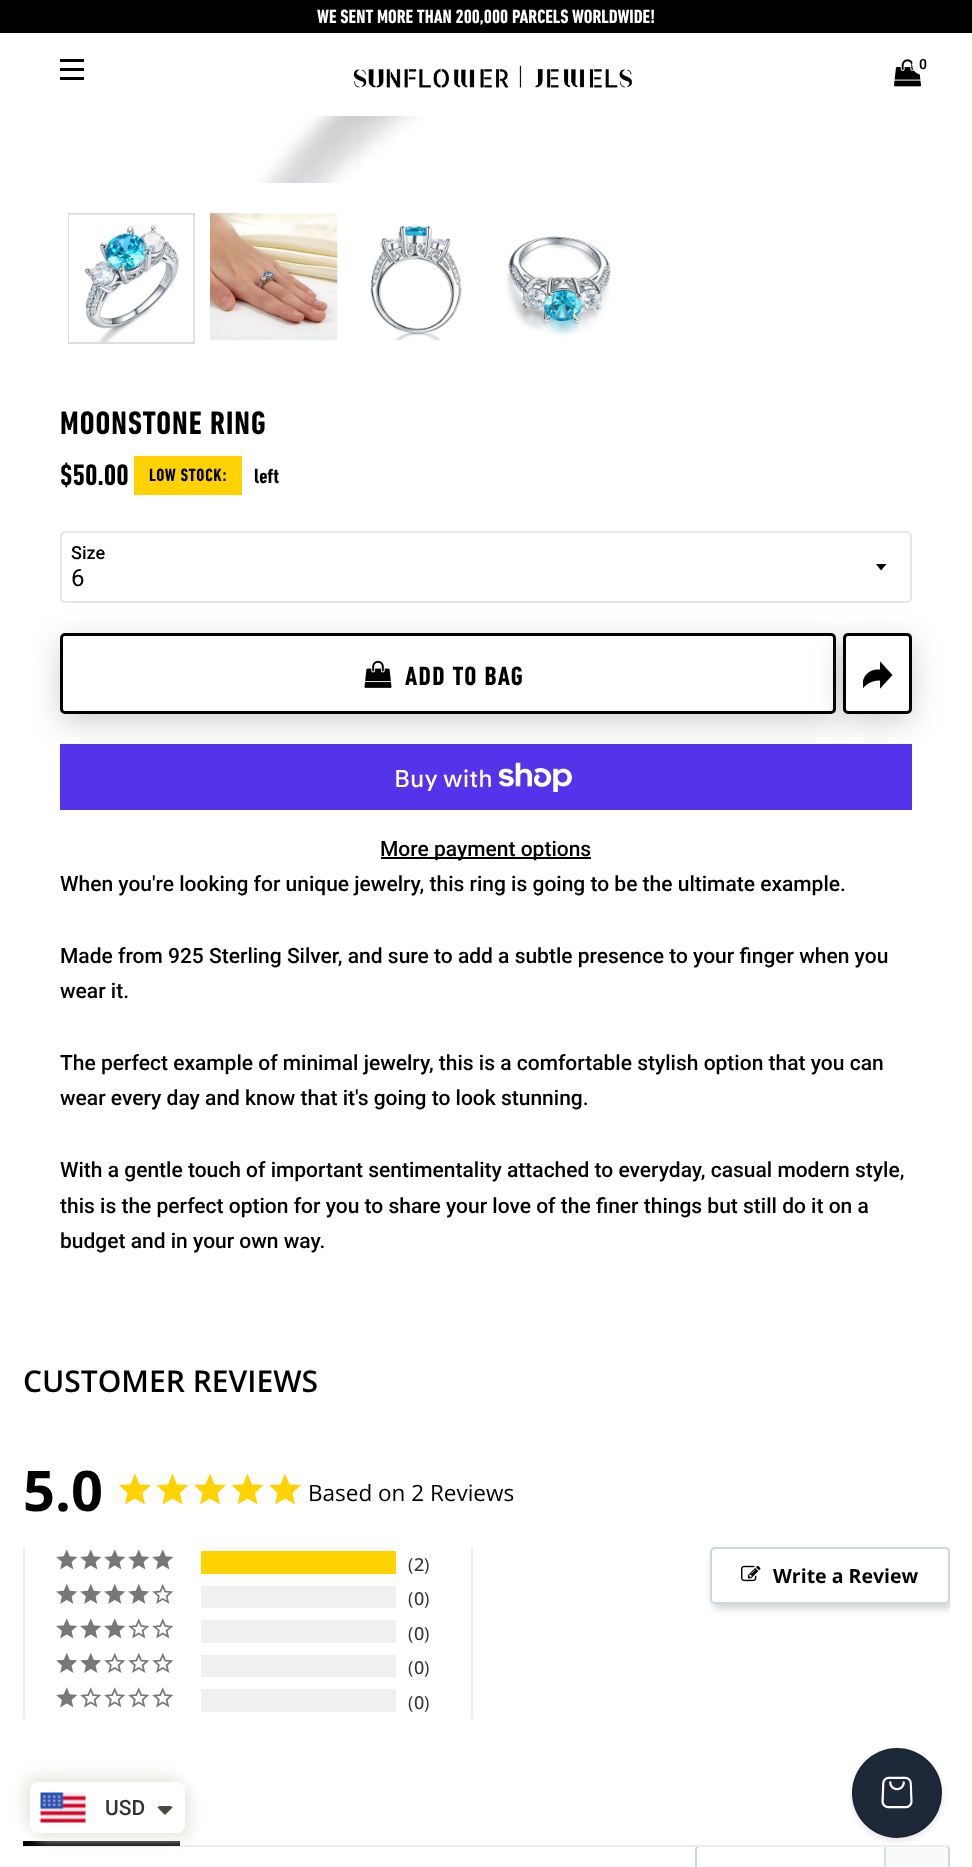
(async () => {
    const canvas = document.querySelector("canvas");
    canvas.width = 972;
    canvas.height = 1867;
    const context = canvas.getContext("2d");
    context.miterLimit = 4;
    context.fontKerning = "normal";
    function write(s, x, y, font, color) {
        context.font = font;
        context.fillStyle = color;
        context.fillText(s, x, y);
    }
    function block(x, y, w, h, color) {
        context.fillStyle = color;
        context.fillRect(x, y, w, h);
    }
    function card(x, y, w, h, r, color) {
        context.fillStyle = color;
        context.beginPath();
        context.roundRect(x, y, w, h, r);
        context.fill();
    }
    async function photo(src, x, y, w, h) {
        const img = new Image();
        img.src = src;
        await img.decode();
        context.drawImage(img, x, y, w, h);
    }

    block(0, 0, 972, 1867, "rgb(255, 255, 255)");
    block(884, 1845, 1, 22, "rgb(217, 224, 232)");
    block(0, 0, 972, 33, "rgb(0, 0, 0)");
    write("WE SENT MORE THAN 200,000 PARCELS WORLDWIDE!", 317, 23, "bold 19.5px din", "rgb(255, 255, 255)");
    block(60, 59, 24, 3, "rgb(0, 0, 0)");
    block(60, 68, 24, 3, "rgb(0, 0, 0)");
    block(60, 77, 24, 3, "rgb(0, 0, 0)");
    await photo("media/1.png", 353, 65, 279, 23);
    await photo("media/2.png", 894, 59, 27, 28);
    context.fillStyle = "rgb(255, 255, 255)";
    context.beginPath();
    context.arc(922.5, 64.5, 10.5, 0, Math.PI * 2);
    context.fill();
    write("0", 919, 69, "600 14px Roboto", "rgb(0, 0, 0)");
    await photo("media/3.png", 176, 116, 412, 67);
    context.strokeStyle = "rgb(221, 221, 221)";
    context.lineWidth = 2;
    context.strokeRect(69, 214, 125, 129);
    await photo("media/4.png", 69, 214, 125, 128);
    await photo("media/5.png", 210, 213, 128, 128);
    await photo("media/6.png", 370, 225, 92, 116);
    await photo("media/7.png", 506, 236, 105, 101);
    context.letterSpacing = "1px";
    write("MOONSTONE RING", 60, 434, "bold 33px din", "rgb(0, 0, 0)");
    context.letterSpacing = "0px";
    write("$50.00", 60, 485, "bold 30px din", "rgb(0, 0, 0)");
    block(134, 456, 108, 39, "rgb(255, 210, 0)");
    context.letterSpacing = "0.75px";
    write("LOW STOCK:", 149, 481, "bold 18px din", "rgb(0, 0, 0)");
    context.letterSpacing = "0px";
    write("left", 254, 483, "bold 21px din", "rgb(0, 0, 0)");
    context.beginPath();
    context.moveTo(876, 564);
    context.lineTo(881, 570.5);
    context.lineTo(886.5, 564);
    context.closePath();
    context.fill();
    context.beginPath();
    context.roundRect(61, 532, 850, 70, 4);
    context.strokeStyle = "rgb(229, 229, 229)";
    context.stroke();
    write("Size", 71, 559, "500 18px Roboto", "rgb(0, 0, 0)");
    write("6", 71, 586, "24px Roboto", "rgb(0, 0, 0)");
    context.fillStyle = "rgba(66, 66, 66, 0.25)";
    context.filter = "blur(15px)";
    context.beginPath();
    context.roundRect(60, 641, 776, 81, 5);
    context.fill();
    context.filter = "none";
    context.fillStyle = "rgb(255, 255, 255)";
    context.beginPath();
    context.roundRect(61.5, 634.5, 773, 78, 3.5);
    context.fill();
    context.strokeStyle = "rgb(0, 0, 0)";
    context.lineWidth = 3;
    context.stroke();
    await photo("media/8.png", 364, 660, 28, 28);
    context.letterSpacing = "1.4px";
    write("ADD TO BAG", 405, 685, "bold 27px din", "rgb(0, 0, 0)");
    context.fillStyle = "rgba(66, 66, 66, 0.25)";
    context.filter = "blur(15px)";
    context.beginPath();
    context.roundRect(843, 641, 69, 81, 5);
    context.fill();
    context.filter = "none";
    context.fillStyle = "rgb(255, 255, 255)";
    context.beginPath();
    context.roundRect(844.5, 634.5, 66, 78, 3.5);
    context.fill();
    context.stroke();
    await photo("media/9.png", 863, 661, 30, 28);
    block(60, 744, 852, 66, "rgb(84, 51, 235)");
    context.letterSpacing = "0px";
    write("Buy with", 394, 787, "500 24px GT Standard", "rgb(255, 255, 255)");
    await photo("media/10.png", 498, 762, 74, 30);
    block(381, 857, 210, 2, "rgb(0, 0, 0)");
    write("More payment options", 380, 856, "500 21px Roboto", "rgb(0, 0, 0)");
    write("When you're looking for unique jewelry, this ring is going to be the ultimate example.", 60, 891, "500 21px Roboto", "rgb(0, 0, 0)");
    write("Made from 925 Sterling Silver, and sure to add a subtle presence to your finger when you", 60, 963, "500 21px Roboto", "rgb(0, 0, 0)");
    write("wear it.", 60, 998, "500 21px Roboto", "rgb(0, 0, 0)");
    write("The perfect example of minimal jewelry, this is a comfortable stylish option that you can", 60, 1070, "500 21px Roboto", "rgb(0, 0, 0)");
    write("wear every day and know that it's going to look stunning.", 60, 1105, "500 21px Roboto", "rgb(0, 0, 0)");
    write("With a gentle touch of important sentimentality attached to everyday, casual modern style,", 60, 1177, "500 21px Roboto", "rgb(0, 0, 0)");
    write("this is the perfect option for you to share your love of the finer things but still do it on a", 60, 1213, "500 21px Roboto", "rgb(0, 0, 0)");
    write("budget and in your own way.", 60, 1248, "500 21px Roboto", "rgb(0, 0, 0)");
    write("CUSTOMER REVIEWS", 23, 1392, "600 30px Open Sans", "rgb(0, 0, 0)");
    write("5.0", 23, 1511, "bold 56px Open Sans", "rgb(0, 0, 0)");
    context.fillStyle = "rgb(255, 210, 0)";
    context.beginPath();
    context.moveTo(135, 1498.5);
    context.lineTo(125, 1504.5);
    context.lineTo(127.5, 1493);
    context.lineTo(119, 1485);
    context.lineTo(130.5, 1484.5);
    context.lineTo(135, 1473.5);
    context.lineTo(139.5, 1484.5);
    context.lineTo(151, 1485);
    context.lineTo(142.5, 1493);
    context.lineTo(145, 1504.5);
    context.closePath();
    context.fill();
    context.beginPath();
    context.moveTo(172.5, 1498.5);
    context.lineTo(162.5, 1504.5);
    context.lineTo(165, 1493);
    context.lineTo(156.5, 1485);
    context.lineTo(168, 1484.5);
    context.lineTo(172.5, 1473.5);
    context.lineTo(177, 1484.5);
    context.lineTo(188.5, 1485);
    context.lineTo(180, 1493);
    context.lineTo(182.5, 1504.5);
    context.closePath();
    context.fill();
    context.beginPath();
    context.moveTo(210, 1498.5);
    context.lineTo(200, 1504.5);
    context.lineTo(202.5, 1493);
    context.lineTo(194, 1485);
    context.lineTo(205.5, 1484.5);
    context.lineTo(210, 1473.5);
    context.lineTo(214.5, 1484.5);
    context.lineTo(226, 1485);
    context.lineTo(217.5, 1493);
    context.lineTo(220, 1504.5);
    context.closePath();
    context.fill();
    context.beginPath();
    context.moveTo(247.5, 1498.5);
    context.lineTo(237.5, 1504.5);
    context.lineTo(240, 1493);
    context.lineTo(231.5, 1485);
    context.lineTo(243, 1484.5);
    context.lineTo(247.5, 1473.5);
    context.lineTo(252, 1484.5);
    context.lineTo(263.5, 1485);
    context.lineTo(255, 1493);
    context.lineTo(257.5, 1504.5);
    context.closePath();
    context.fill();
    context.beginPath();
    context.moveTo(285, 1498.5);
    context.lineTo(275, 1504.5);
    context.lineTo(277.5, 1493);
    context.lineTo(269, 1485);
    context.lineTo(280.5, 1484.5);
    context.lineTo(285, 1473.5);
    context.lineTo(289.5, 1484.5);
    context.lineTo(301, 1485);
    context.lineTo(292.5, 1493);
    context.lineTo(295, 1504.5);
    context.closePath();
    context.fill();
    write("Based on 2 Reviews", 308, 1501, "22.5px Open Sans", "rgb(0, 0, 0)");
    block(471, 1547, 2, 172, "rgb(238, 238, 238)");
    block(23, 1547, 2, 172, "rgb(238, 238, 238)");
    await photo("media/11.png", 56, 1549, 118, 21);
    block(201, 1551, 195, 23, "rgb(255, 210, 0)");
    write("(", 408, 1571, "18px Open Sans", "rgb(51, 51, 51)");
    write("2", 414, 1571, "500 18px Open Sans", "rgb(51, 51, 51)");
    write(")", 424, 1571, "18px Open Sans", "rgb(51, 51, 51)");
    await photo("media/12.png", 56, 1584, 118, 20);
    block(201, 1586, 195, 22, "rgb(240, 240, 240)");
    write("(", 408, 1605, "18px Open Sans", "rgb(51, 51, 51)");
    write("0", 414, 1605, "500 18px Open Sans", "rgb(51, 51, 51)");
    write(")", 424, 1605, "18px Open Sans", "rgb(51, 51, 51)");
    await photo("media/13.png", 56, 1618, 118, 21);
    block(201, 1620, 195, 23, "rgb(240, 240, 240)");
    write("(", 408, 1640, "18px Open Sans", "rgb(51, 51, 51)");
    write("0", 414, 1640, "500 18px Open Sans", "rgb(51, 51, 51)");
    write(")", 424, 1640, "18px Open Sans", "rgb(51, 51, 51)");
    await photo("media/14.png", 56, 1653, 118, 20);
    block(201, 1655, 195, 22, "rgb(240, 240, 240)");
    write("(", 408, 1674, "18px Open Sans", "rgb(51, 51, 51)");
    write("0", 414, 1674, "500 18px Open Sans", "rgb(51, 51, 51)");
    write(")", 424, 1674, "18px Open Sans", "rgb(51, 51, 51)");
    await photo("media/15.png", 56, 1687, 118, 21);
    block(201, 1689, 195, 23, "rgb(240, 240, 240)");
    write("(", 408, 1709, "18px Open Sans", "rgb(51, 51, 51)");
    write("0", 414, 1709, "500 18px Open Sans", "rgb(51, 51, 51)");
    write(")", 424, 1709, "18px Open Sans", "rgb(51, 51, 51)");
    context.save();
    context.beginPath();
    context.rect(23, 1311, 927, 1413);
    context.clip();
    context.beginPath();
    context.moveTo(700, 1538);
    context.lineTo(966, 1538);
    context.lineTo(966, 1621);
    context.lineTo(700, 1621);
    context.closePath();
    context.moveTo(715, 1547);
    context.lineTo(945, 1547);
    context.bezierCurveTo(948, 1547, 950, 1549, 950, 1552);
    context.lineTo(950, 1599);
    context.bezierCurveTo(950, 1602, 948, 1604, 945, 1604);
    context.lineTo(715, 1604);
    context.bezierCurveTo(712, 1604, 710, 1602, 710, 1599);
    context.lineTo(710, 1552);
    context.bezierCurveTo(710, 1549, 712, 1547, 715, 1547);
    context.closePath();
    context.clip("evenodd");
    context.fillStyle = "rgba(136, 136, 136, 0.42)";
    context.filter = "blur(4px)";
    context.beginPath();
    context.roundRect(713, 1551, 240, 57, 5);
    context.fill();
    context.filter = "none";
    context.restore();
    context.beginPath();
    context.roundRect(711, 1548, 238, 55, 4);
    context.strokeStyle = "rgb(204, 214, 224)";
    context.lineWidth = 2;
    context.stroke();
    await photo("media/16.png", 741, 1565, 20, 17);
    write("Write a Review", 773, 1583, "bold 19.5px Open Sans", "rgb(0, 0, 0)");
    context.fillStyle = "rgb(249, 251, 251)";
    context.beginPath();
    context.moveTo(885, 1845);
    context.lineTo(945, 1845);
    context.bezierCurveTo(948, 1845, 950, 1847, 950, 1850);
    context.lineTo(950, 1867);
    context.bezierCurveTo(950, 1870, 948, 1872, 945, 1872);
    context.lineTo(885, 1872);
    context.closePath();
    context.fill();
    block(885, 1845, 1, 22, "rgb(215, 223, 231)");
    context.beginPath();
    context.roundRect(696, 1846, 253, 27, 4);
    context.stroke();
    block(23, 1845, 927, 2, "rgb(238, 238, 238)");
    block(23, 1841, 157, 5, "rgb(0, 0, 0)");
    context.fillStyle = "rgb(232, 232, 226)";
    context.filter = "blur(7px)";
    context.beginPath();
    context.roundRect(24, 1776, 155, 51, 8);
    context.fill();
    context.filter = "none";
    context.filter = "blur(7px)";
    context.beginPath();
    context.roundRect(36, 1788, 155, 51, 8);
    context.fill();
    context.filter = "none";
    card(30, 1782, 155, 51, 8, "rgb(255, 255, 255)");
    await photo("media/17.png", 40, 1792, 46, 31);
    write("USD", 105, 1815, "500 21px Roboto", "rgb(51, 51, 51)");
    context.fillStyle = "rgb(71, 73, 66)";
    context.beginPath();
    context.moveTo(160.5, 1806);
    context.bezierCurveTo(159, 1806, 158, 1806.5, 157.5, 1807.5);
    context.lineTo(165, 1815);
    context.lineTo(172.5, 1807.5);
    context.bezierCurveTo(172, 1806.5, 171, 1806, 169.5, 1806);
    context.closePath();
    context.fill();
    context.fillStyle = "rgba(0, 0, 0, 0.1)";
    context.filter = "blur(3px)";
    context.beginPath();
    context.roundRect(852, 1751, 90, 90, 45);
    context.fill();
    context.filter = "none";
    context.fillStyle = "rgb(29, 41, 57)";
    context.beginPath();
    context.arc(897, 1793, 45, 0, Math.PI * 2);
    context.fill();
    context.beginPath();
    context.arc(897, 1793, 44, 0, Math.PI * 2);
    context.strokeStyle = "rgba(0, 0, 0, 0.1)";
    context.stroke();
    await photo("media/18.png", 881, 1776, 32, 33);
})();
